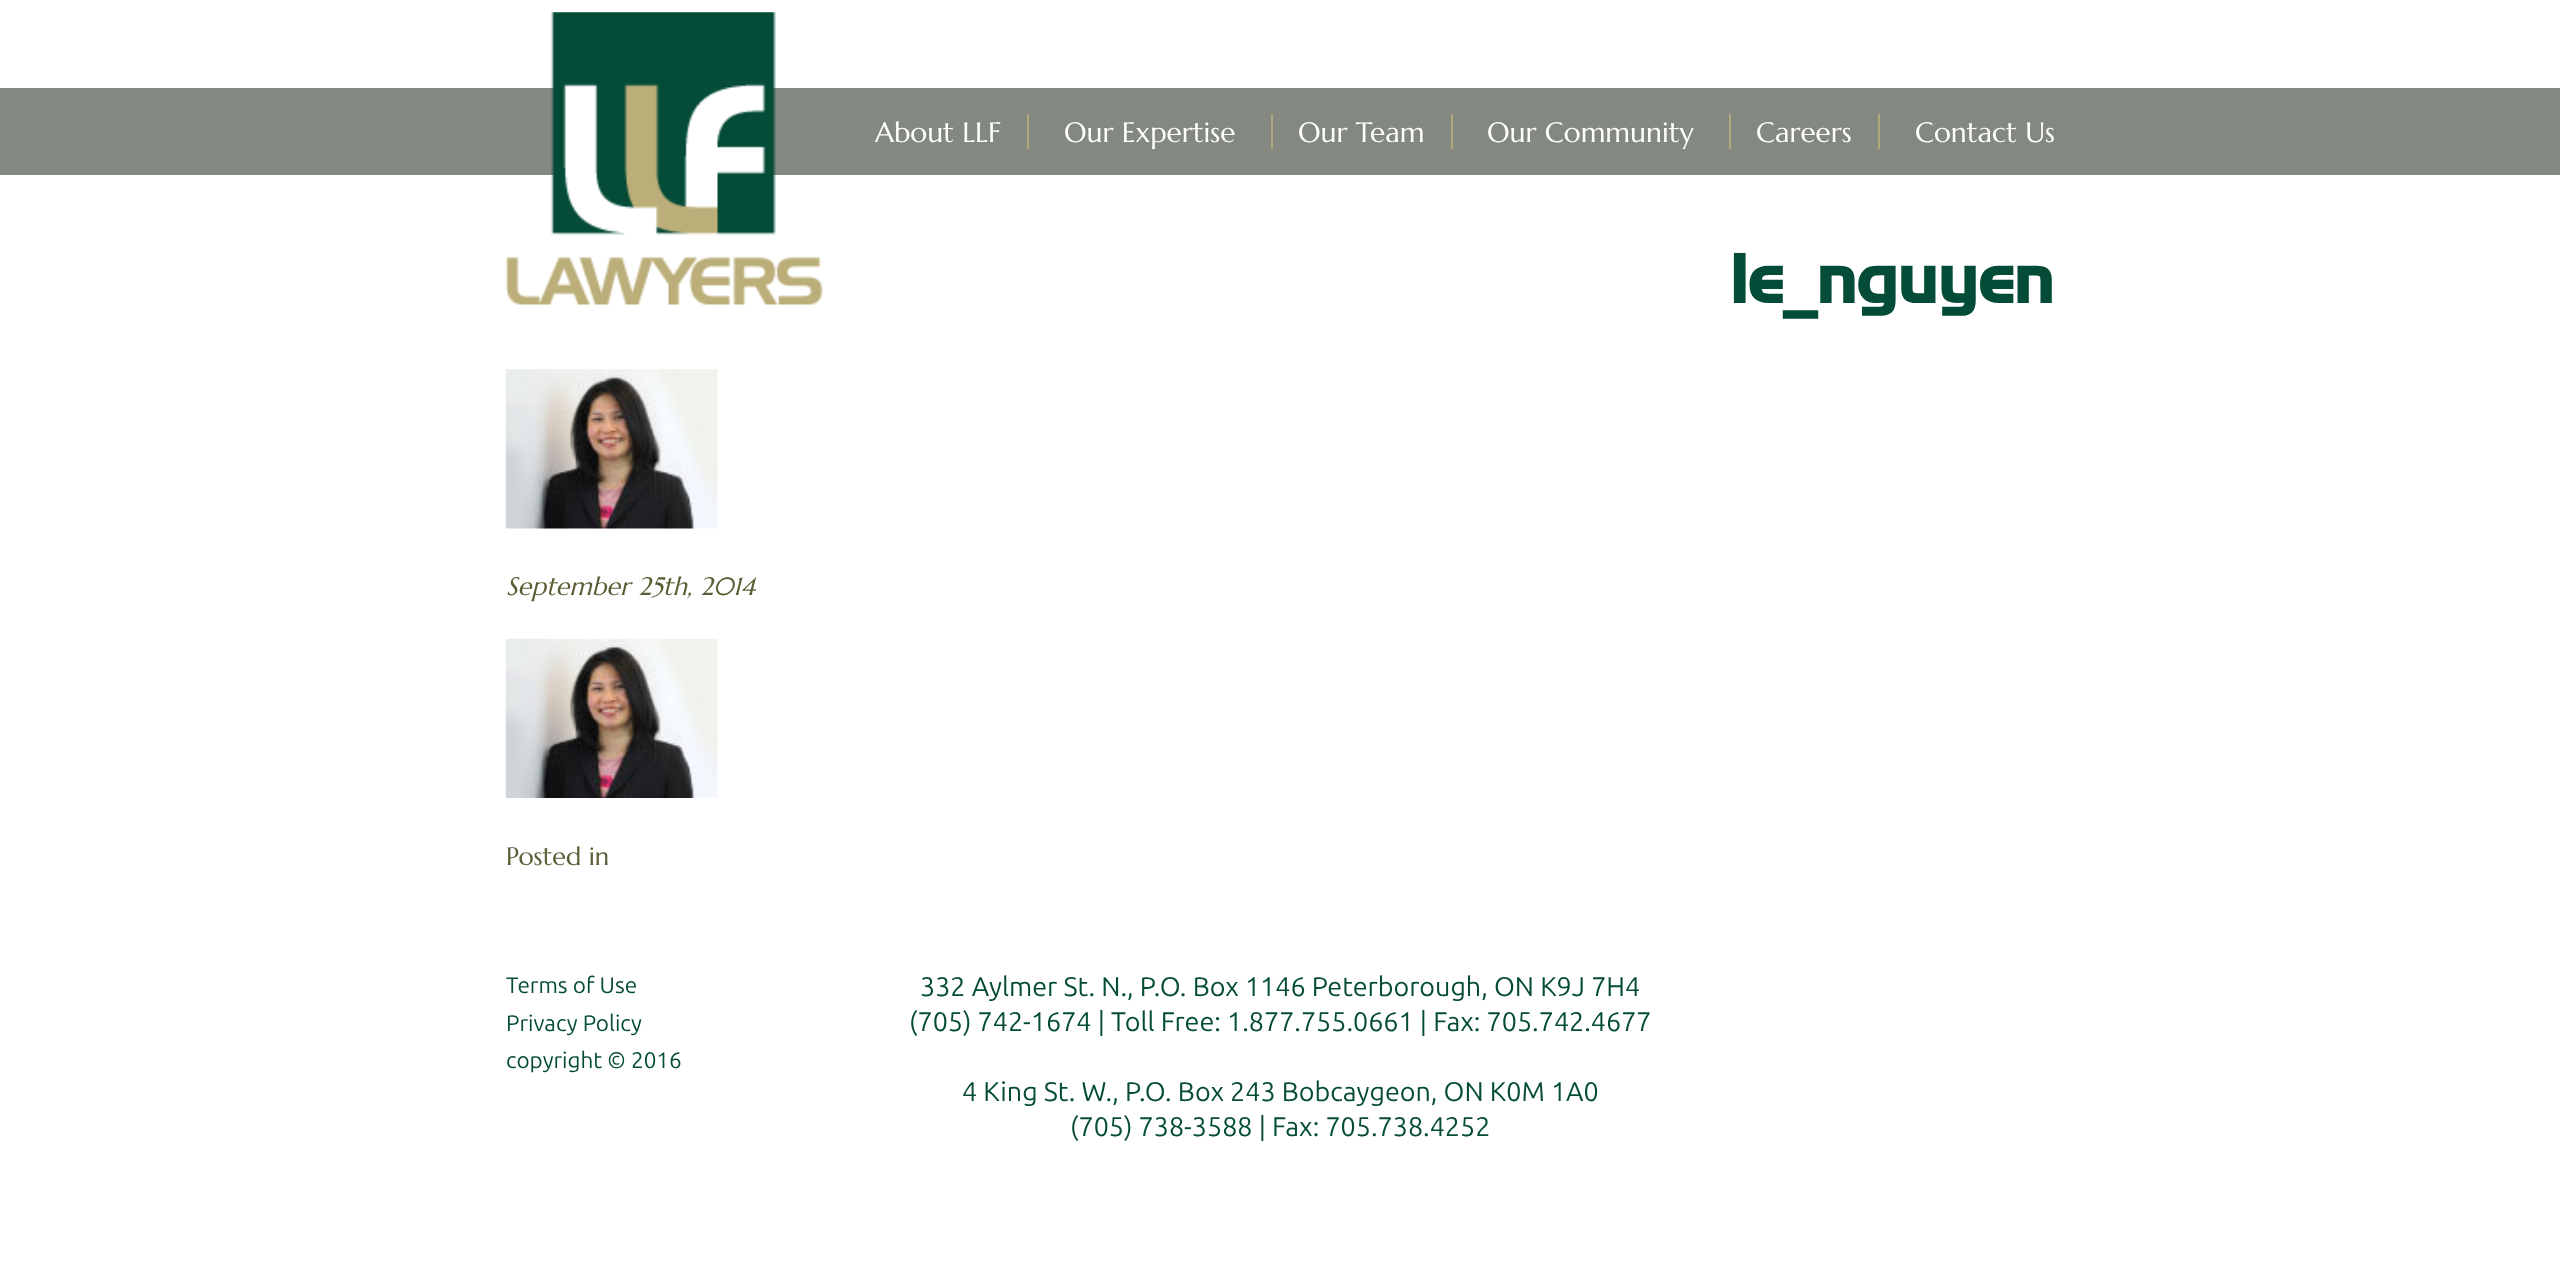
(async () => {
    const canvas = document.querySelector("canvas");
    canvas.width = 2560;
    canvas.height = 1274;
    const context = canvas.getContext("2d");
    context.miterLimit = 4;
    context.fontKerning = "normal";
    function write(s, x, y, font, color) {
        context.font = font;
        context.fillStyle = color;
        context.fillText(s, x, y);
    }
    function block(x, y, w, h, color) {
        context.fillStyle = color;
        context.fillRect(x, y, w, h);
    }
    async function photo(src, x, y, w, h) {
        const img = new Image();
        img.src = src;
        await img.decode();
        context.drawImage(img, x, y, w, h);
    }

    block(0, 0, 2560, 1274, "rgb(255, 255, 255)");
    block(0, 88, 2560, 87, "rgb(131, 136, 129)");
    await photo("media/1.png", 505, 12, 318, 293);
    write("About LLF", 875, 142, "28px Marcellus", "rgb(255, 255, 255)");
    block(1027, 114, 2, 35, "rgb(176, 167, 123)");
    write("Our Expertise", 1064, 142, "28px Marcellus", "rgb(255, 255, 255)");
    block(1271, 114, 2, 35, "rgb(176, 167, 123)");
    write("Our Team", 1298, 142, "28px Marcellus", "rgb(255, 255, 255)");
    block(1451, 114, 2, 35, "rgb(176, 167, 123)");
    write("Our Community", 1487, 142, "28px Marcellus", "rgb(255, 255, 255)");
    block(1729, 114, 2, 35, "rgb(176, 167, 123)");
    write("Careers", 1756, 142, "28px Marcellus", "rgb(255, 255, 255)");
    block(1878, 114, 2, 35, "rgb(176, 167, 123)");
    write("Contact Us", 1915, 142, "28px Marcellus", "rgb(255, 255, 255)");
    write("le_nguyen", 1730, 303, "bold 67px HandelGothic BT", "rgb(4, 76, 55)");
    await photo("media/2.png", 505, 369, 213, 160);
    write("September 25th, 2014", 506, 595, "italic 25.25px Marcellus", "rgb(93, 93, 53)");
    await photo("media/3.png", 505, 638, 213, 160);
    write("Posted in", 506, 865, "25.25px Marcellus", "rgb(93, 93, 53)");
    write("Terms of Use", 506, 993, "22.5px Ubuntu", "rgb(4, 76, 55)");
    write("Privacy Policy", 506, 1031, "22.5px Ubuntu", "rgb(4, 76, 55)");
    write("copyright © 2016", 506, 1068, "22.5px Ubuntu", "rgb(4, 76, 55)");
    write("332 Aylmer St. N., P.O. Box 1146 Peterborough, ON K9J 7H4", 920, 996, "26.9px Ubuntu", "rgb(4, 76, 55)");
    write("(705) 742-1674 | Toll Free: 1.877.755.0661 | Fax: 705.742.4677", 909, 1031, "26.9px Ubuntu", "rgb(4, 76, 55)");
    write("4 King St. W., P.O. Box 243 Bobcaygeon, ON K0M 1A0", 962, 1101, "26.9px Ubuntu", "rgb(4, 76, 55)");
    write("(705) 738-3588 | Fax: 705.738.4252", 1070, 1136, "26.9px Ubuntu", "rgb(4, 76, 55)");
})();
